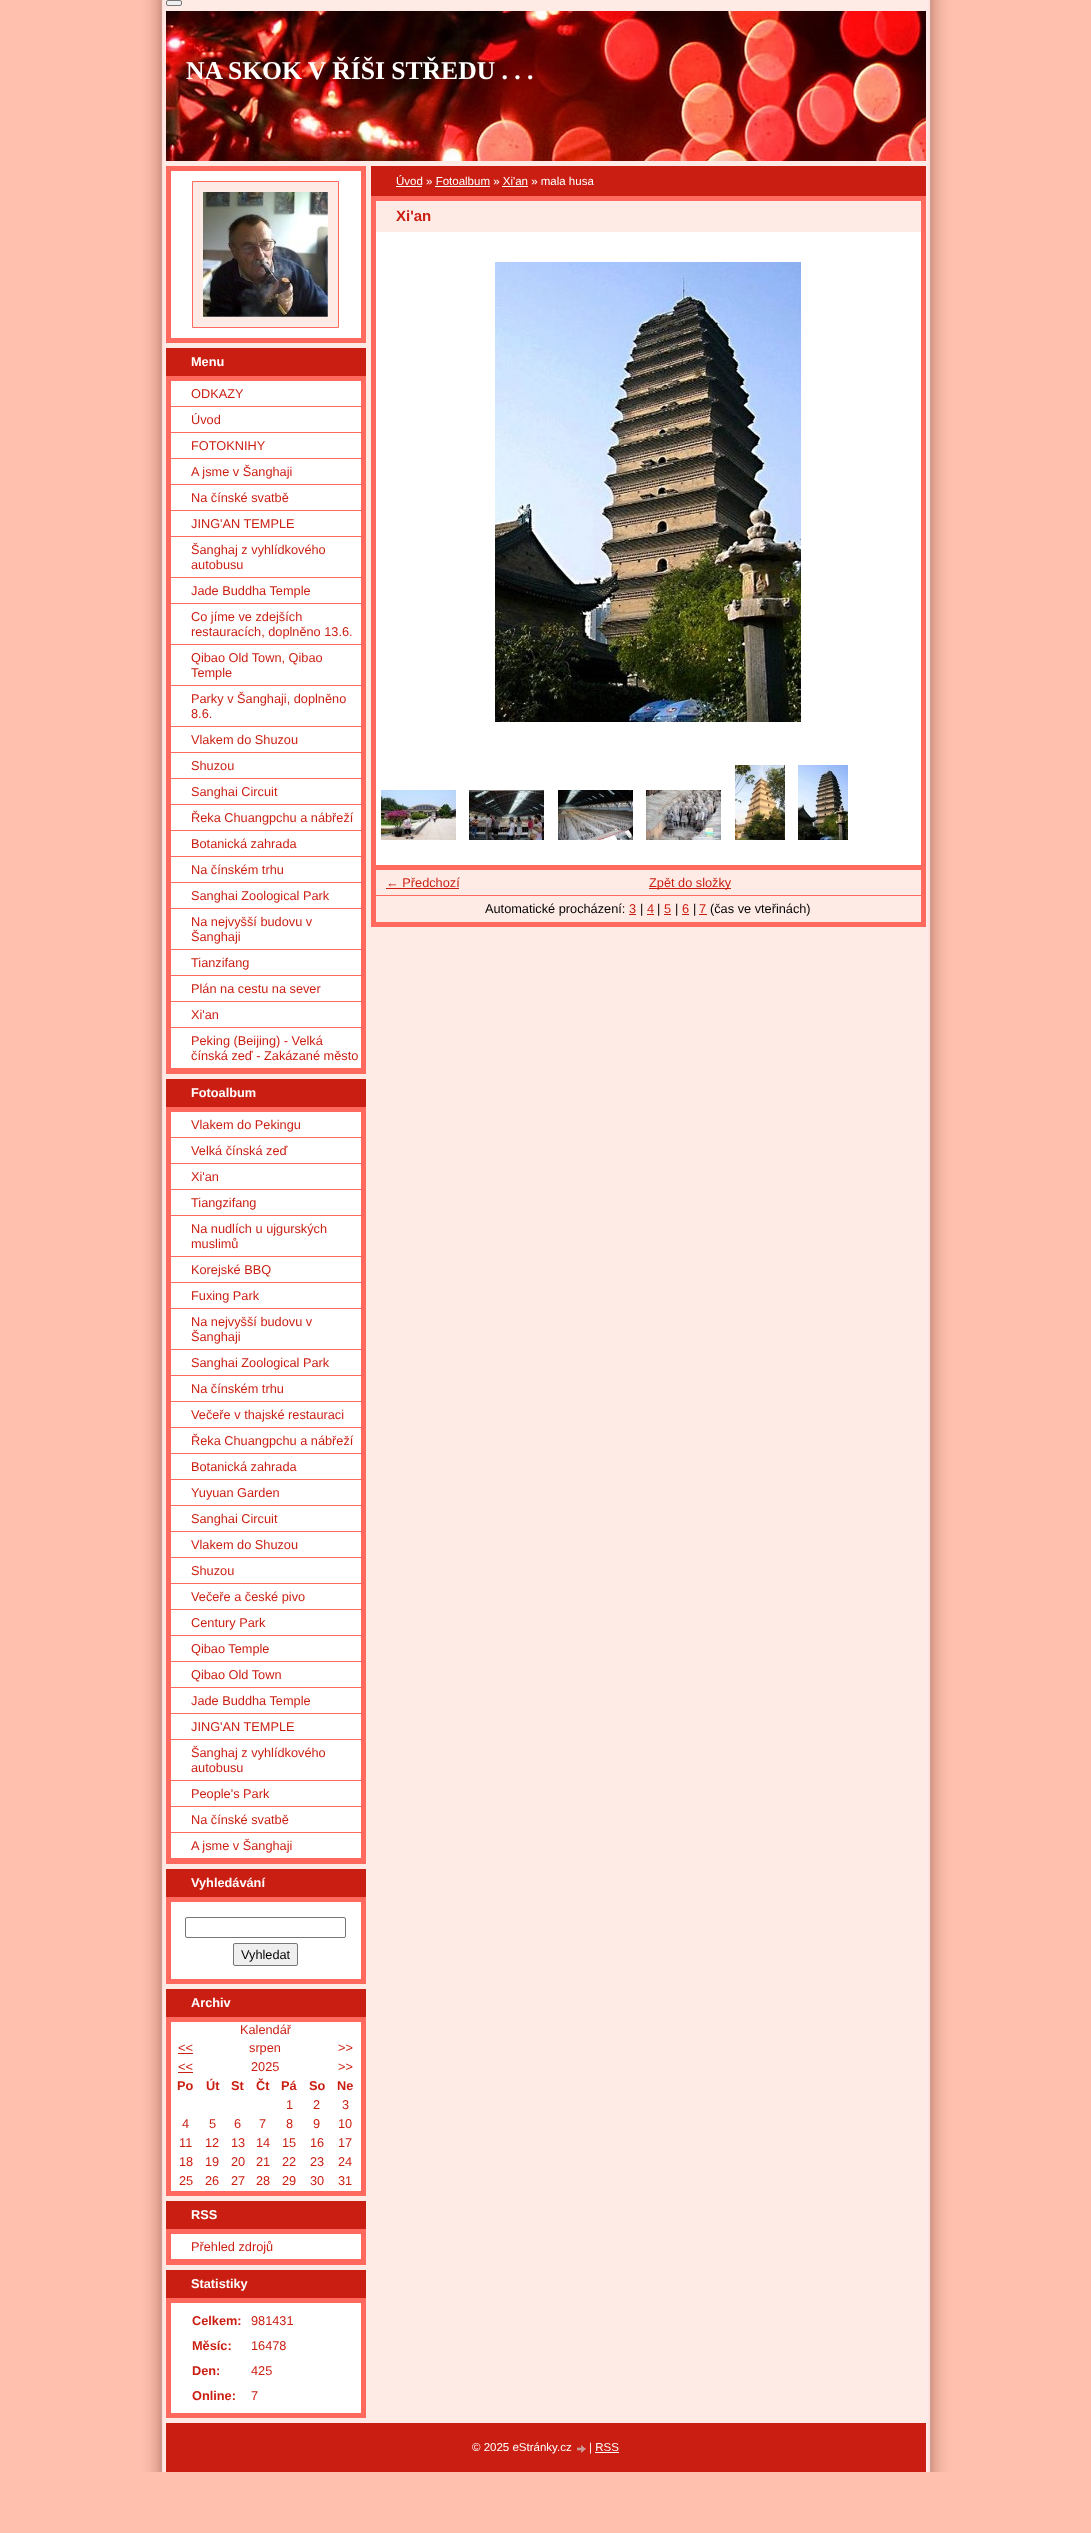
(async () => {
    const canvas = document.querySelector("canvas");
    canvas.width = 1091;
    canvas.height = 2533;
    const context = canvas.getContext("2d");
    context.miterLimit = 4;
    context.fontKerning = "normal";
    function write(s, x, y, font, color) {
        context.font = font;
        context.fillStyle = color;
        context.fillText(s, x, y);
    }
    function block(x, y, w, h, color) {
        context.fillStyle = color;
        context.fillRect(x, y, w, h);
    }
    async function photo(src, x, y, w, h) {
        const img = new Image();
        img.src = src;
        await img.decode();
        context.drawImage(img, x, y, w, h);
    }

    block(0, 0, 1091, 2533, "rgb(255, 193, 174)");
    await photo("media/1.png", 141, 0, 810, 2472);
    context.fillStyle = "rgb(239, 239, 239)";
    context.beginPath();
    context.roundRect(166.5, 0.5, 15, 5, 1.5);
    context.fill();
    context.strokeStyle = "rgb(118, 118, 118)";
    context.stroke();
    await photo("media/2.png", 166, 11, 760, 150);
    write("NA SKOK V ŘÍŠI STŘEDU . . .", 186, 79, "bold 25.6px Liberation Serif", "rgb(255, 255, 255)");
    context.beginPath();
    context.rect(168.5, 168.5, 195, 172);
    context.fill();
    context.strokeStyle = "rgb(255, 105, 94)";
    context.lineWidth = 5;
    context.stroke();
    context.fillStyle = "rgb(254, 235, 229)";
    context.beginPath();
    context.rect(192.5, 181.5, 146, 146);
    context.fill();
    context.lineWidth = 1;
    context.stroke();
    await photo("media/3.png", 203, 192, 125, 125);
    block(166, 348, 200, 28, "rgb(203, 30, 18)");
    write("Menu", 191, 366, "bold 12.75px Liberation Sans", "rgb(255, 255, 255)");
    block(171, 381, 190, 687, "rgb(255, 255, 255)");
    context.lineWidth = 5;
    context.strokeRect(168.5, 378.5, 195, 693);
    block(171, 406, 190, 1, "rgb(255, 105, 94)");
    write("ODKAZY", 191, 398, "12.75px Liberation Sans", "rgb(203, 30, 18)");
    block(171, 432, 190, 1, "rgb(255, 105, 94)");
    write("Úvod", 191, 424, "12.75px Liberation Sans", "rgb(203, 30, 18)");
    block(171, 458, 190, 1, "rgb(255, 105, 94)");
    write("FOTOKNIHY", 191, 450, "12.75px Liberation Sans", "rgb(203, 30, 18)");
    block(171, 484, 190, 1, "rgb(255, 105, 94)");
    write("A jsme v Šanghaji", 191, 476, "12.75px Liberation Sans", "rgb(203, 30, 18)");
    block(171, 510, 190, 1, "rgb(255, 105, 94)");
    write("Na čínské svatbě", 191, 502, "12.75px Liberation Sans", "rgb(203, 30, 18)");
    block(171, 536, 190, 1, "rgb(255, 105, 94)");
    write("JING'AN TEMPLE", 191, 528, "12.75px Liberation Sans", "rgb(203, 30, 18)");
    block(171, 577, 190, 1, "rgb(255, 105, 94)");
    write("Šanghaj z vyhlídkového", 191, 554, "12.75px Liberation Sans", "rgb(203, 30, 18)");
    write("autobusu", 191, 569, "12.75px Liberation Sans", "rgb(203, 30, 18)");
    block(171, 603, 190, 1, "rgb(255, 105, 94)");
    write("Jade Buddha Temple", 191, 595, "12.75px Liberation Sans", "rgb(203, 30, 18)");
    block(171, 644, 190, 1, "rgb(255, 105, 94)");
    write("Co jíme ve zdejších", 191, 621, "12.75px Liberation Sans", "rgb(203, 30, 18)");
    write("restauracích, doplněno 13.6.", 191, 636, "12.75px Liberation Sans", "rgb(203, 30, 18)");
    block(171, 685, 190, 1, "rgb(255, 105, 94)");
    write("Qibao Old Town, Qibao", 191, 662, "12.75px Liberation Sans", "rgb(203, 30, 18)");
    write("Temple", 191, 677, "12.75px Liberation Sans", "rgb(203, 30, 18)");
    block(171, 726, 190, 1, "rgb(255, 105, 94)");
    write("Parky v Šanghaji, doplněno", 191, 703, "12.75px Liberation Sans", "rgb(203, 30, 18)");
    write("8.6.", 191, 718, "12.75px Liberation Sans", "rgb(203, 30, 18)");
    block(171, 752, 190, 1, "rgb(255, 105, 94)");
    write("Vlakem do Shuzou", 191, 744, "12.75px Liberation Sans", "rgb(203, 30, 18)");
    block(171, 778, 190, 1, "rgb(255, 105, 94)");
    write("Shuzou", 191, 770, "12.75px Liberation Sans", "rgb(203, 30, 18)");
    block(171, 804, 190, 1, "rgb(255, 105, 94)");
    write("Sanghai Circuit", 191, 796, "12.75px Liberation Sans", "rgb(203, 30, 18)");
    block(171, 830, 190, 1, "rgb(255, 105, 94)");
    write("Řeka Chuangpchu a nábřeží", 191, 822, "12.75px Liberation Sans", "rgb(203, 30, 18)");
    block(171, 856, 190, 1, "rgb(255, 105, 94)");
    write("Botanická zahrada", 191, 848, "12.75px Liberation Sans", "rgb(203, 30, 18)");
    block(171, 882, 190, 1, "rgb(255, 105, 94)");
    write("Na čínském trhu", 191, 874, "12.75px Liberation Sans", "rgb(203, 30, 18)");
    block(171, 908, 190, 1, "rgb(255, 105, 94)");
    write("Sanghai Zoological Park", 191, 900, "12.75px Liberation Sans", "rgb(203, 30, 18)");
    block(171, 949, 190, 1, "rgb(255, 105, 94)");
    write("Na nejvyšší budovu v", 191, 926, "12.75px Liberation Sans", "rgb(203, 30, 18)");
    write("Šanghaji", 191, 941, "12.75px Liberation Sans", "rgb(203, 30, 18)");
    block(171, 975, 190, 1, "rgb(255, 105, 94)");
    write("Tianzifang", 191, 967, "12.75px Liberation Sans", "rgb(203, 30, 18)");
    block(171, 1001, 190, 1, "rgb(255, 105, 94)");
    write("Plán na cestu na sever", 191, 993, "12.75px Liberation Sans", "rgb(203, 30, 18)");
    block(171, 1027, 190, 1, "rgb(255, 105, 94)");
    write("Xi'an", 191, 1019, "12.75px Liberation Sans", "rgb(203, 30, 18)");
    block(171, 1068, 190, 1, "rgb(255, 105, 94)");
    write("Peking (Beijing) - Velká", 191, 1045, "12.75px Liberation Sans", "rgb(203, 30, 18)");
    write("čínská zeď - Zakázané město", 191, 1060, "12.75px Liberation Sans", "rgb(203, 30, 18)");
    block(166, 1079, 200, 28, "rgb(203, 30, 18)");
    write("Fotoalbum", 191, 1097, "bold 12.75px Liberation Sans", "rgb(255, 255, 255)");
    block(171, 1112, 190, 746, "rgb(255, 255, 255)");
    context.strokeRect(168.5, 1109.5, 195, 752);
    block(171, 1137, 190, 1, "rgb(255, 105, 94)");
    write("Vlakem do Pekingu", 191, 1129, "12.75px Liberation Sans", "rgb(203, 30, 18)");
    block(171, 1163, 190, 1, "rgb(255, 105, 94)");
    write("Velká čínská zeď", 191, 1155, "12.75px Liberation Sans", "rgb(203, 30, 18)");
    block(171, 1189, 190, 1, "rgb(255, 105, 94)");
    write("Xi'an", 191, 1181, "12.75px Liberation Sans", "rgb(203, 30, 18)");
    block(171, 1215, 190, 1, "rgb(255, 105, 94)");
    write("Tiangzifang", 191, 1207, "12.75px Liberation Sans", "rgb(203, 30, 18)");
    block(171, 1256, 190, 1, "rgb(255, 105, 94)");
    write("Na nudlích u ujgurských", 191, 1233, "12.75px Liberation Sans", "rgb(203, 30, 18)");
    write("muslimů", 191, 1248, "12.75px Liberation Sans", "rgb(203, 30, 18)");
    block(171, 1282, 190, 1, "rgb(255, 105, 94)");
    write("Korejské BBQ", 191, 1274, "12.75px Liberation Sans", "rgb(203, 30, 18)");
    block(171, 1308, 190, 1, "rgb(255, 105, 94)");
    write("Fuxing Park", 191, 1300, "12.75px Liberation Sans", "rgb(203, 30, 18)");
    block(171, 1349, 190, 1, "rgb(255, 105, 94)");
    write("Na nejvyšší budovu v", 191, 1326, "12.75px Liberation Sans", "rgb(203, 30, 18)");
    write("Šanghaji", 191, 1341, "12.75px Liberation Sans", "rgb(203, 30, 18)");
    block(171, 1375, 190, 1, "rgb(255, 105, 94)");
    write("Sanghai Zoological Park", 191, 1367, "12.75px Liberation Sans", "rgb(203, 30, 18)");
    block(171, 1401, 190, 1, "rgb(255, 105, 94)");
    write("Na čínském trhu", 191, 1393, "12.75px Liberation Sans", "rgb(203, 30, 18)");
    block(171, 1427, 190, 1, "rgb(255, 105, 94)");
    write("Večeře v thajské restauraci", 191, 1419, "12.75px Liberation Sans", "rgb(203, 30, 18)");
    block(171, 1453, 190, 1, "rgb(255, 105, 94)");
    write("Řeka Chuangpchu a nábřeží", 191, 1445, "12.75px Liberation Sans", "rgb(203, 30, 18)");
    block(171, 1479, 190, 1, "rgb(255, 105, 94)");
    write("Botanická zahrada", 191, 1471, "12.75px Liberation Sans", "rgb(203, 30, 18)");
    block(171, 1505, 190, 1, "rgb(255, 105, 94)");
    write("Yuyuan Garden", 191, 1497, "12.75px Liberation Sans", "rgb(203, 30, 18)");
    block(171, 1531, 190, 1, "rgb(255, 105, 94)");
    write("Sanghai Circuit", 191, 1523, "12.75px Liberation Sans", "rgb(203, 30, 18)");
    block(171, 1557, 190, 1, "rgb(255, 105, 94)");
    write("Vlakem do Shuzou", 191, 1549, "12.75px Liberation Sans", "rgb(203, 30, 18)");
    block(171, 1583, 190, 1, "rgb(255, 105, 94)");
    write("Shuzou", 191, 1575, "12.75px Liberation Sans", "rgb(203, 30, 18)");
    block(171, 1609, 190, 1, "rgb(255, 105, 94)");
    write("Večeře a české pivo", 191, 1601, "12.75px Liberation Sans", "rgb(203, 30, 18)");
    block(171, 1635, 190, 1, "rgb(255, 105, 94)");
    write("Century Park", 191, 1627, "12.75px Liberation Sans", "rgb(203, 30, 18)");
    block(171, 1661, 190, 1, "rgb(255, 105, 94)");
    write("Qibao Temple", 191, 1653, "12.75px Liberation Sans", "rgb(203, 30, 18)");
    block(171, 1687, 190, 1, "rgb(255, 105, 94)");
    write("Qibao Old Town", 191, 1679, "12.75px Liberation Sans", "rgb(203, 30, 18)");
    block(171, 1713, 190, 1, "rgb(255, 105, 94)");
    write("Jade Buddha Temple", 191, 1705, "12.75px Liberation Sans", "rgb(203, 30, 18)");
    block(171, 1739, 190, 1, "rgb(255, 105, 94)");
    write("JING'AN TEMPLE", 191, 1731, "12.75px Liberation Sans", "rgb(203, 30, 18)");
    block(171, 1780, 190, 1, "rgb(255, 105, 94)");
    write("Šanghaj z vyhlídkového", 191, 1757, "12.75px Liberation Sans", "rgb(203, 30, 18)");
    write("autobusu", 191, 1772, "12.75px Liberation Sans", "rgb(203, 30, 18)");
    block(171, 1806, 190, 1, "rgb(255, 105, 94)");
    write("People's Park", 191, 1798, "12.75px Liberation Sans", "rgb(203, 30, 18)");
    block(171, 1832, 190, 1, "rgb(255, 105, 94)");
    write("Na čínské svatbě", 191, 1824, "12.75px Liberation Sans", "rgb(203, 30, 18)");
    block(171, 1858, 190, 1, "rgb(255, 105, 94)");
    write("A jsme v Šanghaji", 191, 1850, "12.75px Liberation Sans", "rgb(203, 30, 18)");
    block(166, 1869, 200, 28, "rgb(203, 30, 18)");
    write("Vyhledávání", 191, 1887, "bold 12.75px Liberation Sans", "rgb(255, 255, 255)");
    context.beginPath();
    context.rect(168.5, 1899.5, 195, 82);
    context.fill();
    context.stroke();
    context.beginPath();
    context.roundRect(185.5, 1917.5, 160, 20, 1.5);
    context.strokeStyle = "rgb(118, 118, 118)";
    context.lineWidth = 1;
    context.stroke();
    context.fillStyle = "rgb(239, 239, 239)";
    context.beginPath();
    context.roundRect(233.5, 1943.5, 64, 22, 1.5);
    context.fill();
    context.stroke();
    write("Vyhledat", 241, 1959, "12.75px Liberation Sans", "rgb(0, 0, 0)");
    block(166, 1989, 200, 28, "rgb(203, 30, 18)");
    write("Archiv", 191, 2007, "bold 12.75px Liberation Sans", "rgb(255, 255, 255)");
    context.beginPath();
    context.rect(168.5, 2019.5, 195, 174);
    context.fill();
    context.strokeStyle = "rgb(255, 105, 94)";
    context.lineWidth = 5;
    context.stroke();
    write("Kalendář", 240, 2034, "12.75px Liberation Sans", "rgb(203, 30, 18)");
    write("<<", 178, 2052, "12.75px Liberation Sans", "rgb(203, 30, 18)");
    block(178, 2053, 15, 1, "rgb(203, 30, 18)");
    write("srpen", 249, 2052, "12.75px Liberation Sans", "rgb(203, 30, 18)");
    write(">>", 338, 2052, "12.75px Liberation Sans", "rgb(203, 30, 18)");
    write("<<", 178, 2071, "12.75px Liberation Sans", "rgb(203, 30, 18)");
    block(178, 2072, 15, 1, "rgb(203, 30, 18)");
    write("2025", 251, 2071, "12.75px Liberation Sans", "rgb(203, 30, 18)");
    write(">>", 338, 2071, "12.75px Liberation Sans", "rgb(203, 30, 18)");
    write("Po", 177, 2090, "bold 12.75px Liberation Sans", "rgb(203, 30, 18)");
    write("Út", 206, 2090, "bold 12.75px Liberation Sans", "rgb(203, 30, 18)");
    write("St", 231, 2090, "bold 12.75px Liberation Sans", "rgb(203, 30, 18)");
    write("Čt", 256, 2090, "bold 12.75px Liberation Sans", "rgb(203, 30, 18)");
    write("Pá", 281, 2090, "bold 12.75px Liberation Sans", "rgb(203, 30, 18)");
    write("So", 309, 2090, "bold 12.75px Liberation Sans", "rgb(203, 30, 18)");
    write("Ne", 337, 2090, "bold 12.75px Liberation Sans", "rgb(203, 30, 18)");
    write("1", 286, 2109, "12.75px Liberation Sans", "rgb(203, 30, 18)");
    write("2", 313, 2109, "12.75px Liberation Sans", "rgb(203, 30, 18)");
    write("3", 342, 2109, "12.75px Liberation Sans", "rgb(203, 30, 18)");
    write("4", 182, 2128, "12.75px Liberation Sans", "rgb(203, 30, 18)");
    write("5", 209, 2128, "12.75px Liberation Sans", "rgb(203, 30, 18)");
    write("6", 234, 2128, "12.75px Liberation Sans", "rgb(203, 30, 18)");
    write("7", 259, 2128, "12.75px Liberation Sans", "rgb(203, 30, 18)");
    write("8", 286, 2128, "12.75px Liberation Sans", "rgb(203, 30, 18)");
    write("9", 313, 2128, "12.75px Liberation Sans", "rgb(203, 30, 18)");
    write("10", 338, 2128, "12.75px Liberation Sans", "rgb(203, 30, 18)");
    write("11", 179, 2147, "12.75px Liberation Sans", "rgb(203, 30, 18)");
    write("12", 205, 2147, "12.75px Liberation Sans", "rgb(203, 30, 18)");
    write("13", 231, 2147, "12.75px Liberation Sans", "rgb(203, 30, 18)");
    write("14", 256, 2147, "12.75px Liberation Sans", "rgb(203, 30, 18)");
    write("15", 282, 2147, "12.75px Liberation Sans", "rgb(203, 30, 18)");
    write("16", 310, 2147, "12.75px Liberation Sans", "rgb(203, 30, 18)");
    write("17", 338, 2147, "12.75px Liberation Sans", "rgb(203, 30, 18)");
    write("18", 179, 2166, "12.75px Liberation Sans", "rgb(203, 30, 18)");
    write("19", 205, 2166, "12.75px Liberation Sans", "rgb(203, 30, 18)");
    write("20", 231, 2166, "12.75px Liberation Sans", "rgb(203, 30, 18)");
    write("21", 256, 2166, "12.75px Liberation Sans", "rgb(203, 30, 18)");
    write("22", 282, 2166, "12.75px Liberation Sans", "rgb(203, 30, 18)");
    write("23", 310, 2166, "12.75px Liberation Sans", "rgb(203, 30, 18)");
    write("24", 338, 2166, "12.75px Liberation Sans", "rgb(203, 30, 18)");
    write("25", 179, 2185, "12.75px Liberation Sans", "rgb(203, 30, 18)");
    write("26", 205, 2185, "12.75px Liberation Sans", "rgb(203, 30, 18)");
    write("27", 231, 2185, "12.75px Liberation Sans", "rgb(203, 30, 18)");
    write("28", 256, 2185, "12.75px Liberation Sans", "rgb(203, 30, 18)");
    write("29", 282, 2185, "12.75px Liberation Sans", "rgb(203, 30, 18)");
    write("30", 310, 2185, "12.75px Liberation Sans", "rgb(203, 30, 18)");
    write("31", 338, 2185, "12.75px Liberation Sans", "rgb(203, 30, 18)");
    block(166, 2201, 200, 28, "rgb(203, 30, 18)");
    write("RSS", 191, 2219, "bold 12.75px Liberation Sans", "rgb(255, 255, 255)");
    block(171, 2234, 190, 25, "rgb(255, 255, 255)");
    context.strokeRect(168.5, 2231.5, 195, 31);
    block(171, 2259, 190, 1, "rgb(255, 105, 94)");
    write("Přehled zdrojů", 191, 2251, "12.75px Liberation Sans", "rgb(203, 30, 18)");
    block(166, 2270, 200, 28, "rgb(203, 30, 18)");
    write("Statistiky", 191, 2288, "bold 12.75px Liberation Sans", "rgb(255, 255, 255)");
    context.beginPath();
    context.rect(168.5, 2300.5, 195, 115);
    context.fill();
    context.stroke();
    write("Celkem:", 192, 2325, "bold 12.75px Liberation Sans", "rgb(203, 30, 18)");
    write("981431", 251, 2325, "12.75px Liberation Sans", "rgb(203, 30, 18)");
    write("Měsíc:", 192, 2350, "bold 12.75px Liberation Sans", "rgb(203, 30, 18)");
    write("16478", 251, 2350, "12.75px Liberation Sans", "rgb(203, 30, 18)");
    write("Den:", 192, 2375, "bold 12.75px Liberation Sans", "rgb(203, 30, 18)");
    write("425", 251, 2375, "12.75px Liberation Sans", "rgb(203, 30, 18)");
    write("Online:", 192, 2400, "bold 12.75px Liberation Sans", "rgb(203, 30, 18)");
    write("7", 251, 2400, "12.75px Liberation Sans", "rgb(203, 30, 18)");
    block(371, 166, 555, 30, "rgb(203, 30, 18)");
    write("Úvod » Fotoalbum » Xi'an » mala husa", 396, 185, "11.5px Liberation Sans", "rgb(255, 255, 255)");
    block(396, 186, 26, 1, "rgb(255, 255, 255)");
    block(435, 186, 55, 1, "rgb(255, 255, 255)");
    block(502, 186, 26, 1, "rgb(255, 255, 255)");
    block(376, 232, 545, 633, "rgb(255, 255, 255)");
    context.strokeRect(373.5, 198.5, 550, 726);
    write("Xi'an", 396, 221, "bold 15px Liberation Sans", "rgb(203, 30, 18)");
    await photo("media/4.png", 495, 262, 306, 460);
    await photo("media/5.png", 381, 790, 75, 50);
    await photo("media/6.png", 469, 790, 75, 50);
    await photo("media/7.png", 558, 790, 75, 50);
    await photo("media/8.png", 646, 790, 75, 50);
    await photo("media/9.png", 735, 765, 50, 75);
    await photo("media/10.png", 798, 765, 50, 75);
    block(376, 865, 545, 5, "rgb(255, 105, 94)");
    write("← Předchozí", 386, 887, "12.75px Liberation Sans", "rgb(203, 30, 18)");
    block(386, 888, 73, 1, "rgb(203, 30, 18)");
    block(649, 888, 82, 1, "rgb(203, 30, 18)");
    write("Zpět do složky", 649, 887, "12.75px Liberation Sans", "rgb(203, 30, 18)");
    block(376, 895, 545, 1, "rgb(255, 105, 94)");
    write("Automatické procházení:", 485, 913, "12.75px Liberation Sans", "rgb(0, 0, 0)");
    write("3", 629, 913, "12.75px Liberation Sans", "rgb(203, 30, 18)");
    block(629, 914, 7, 1, "rgb(203, 30, 18)");
    write("|", 640, 913, "12.75px Liberation Sans", "rgb(0, 0, 0)");
    write("4", 647, 913, "12.75px Liberation Sans", "rgb(203, 30, 18)");
    block(647, 914, 7, 1, "rgb(203, 30, 18)");
    write("|", 657, 913, "12.75px Liberation Sans", "rgb(0, 0, 0)");
    write("5", 664, 913, "12.75px Liberation Sans", "rgb(203, 30, 18)");
    block(664, 914, 7, 1, "rgb(203, 30, 18)");
    write("|", 675, 913, "12.75px Liberation Sans", "rgb(0, 0, 0)");
    write("6", 682, 913, "12.75px Liberation Sans", "rgb(203, 30, 18)");
    block(682, 914, 7, 1, "rgb(203, 30, 18)");
    write("|", 693, 913, "12.75px Liberation Sans", "rgb(0, 0, 0)");
    write("7", 699, 913, "12.75px Liberation Sans", "rgb(203, 30, 18)");
    block(699, 914, 8, 1, "rgb(203, 30, 18)");
    write("(čas ve vteřinách)", 710, 913, "12.75px Liberation Sans", "rgb(0, 0, 0)");
    block(166, 2423, 760, 49, "rgb(203, 30, 18)");
    write("© 2025 eStránky.cz", 472, 2451, "11.5px Liberation Sans", "rgb(255, 255, 255)");
    await photo("media/11.png", 577, 2445, 9, 8);
    write("| RSS", 589, 2451, "11.5px Liberation Sans", "rgb(255, 255, 255)");
    block(595, 2452, 24, 1, "rgb(255, 255, 255)");
})();
